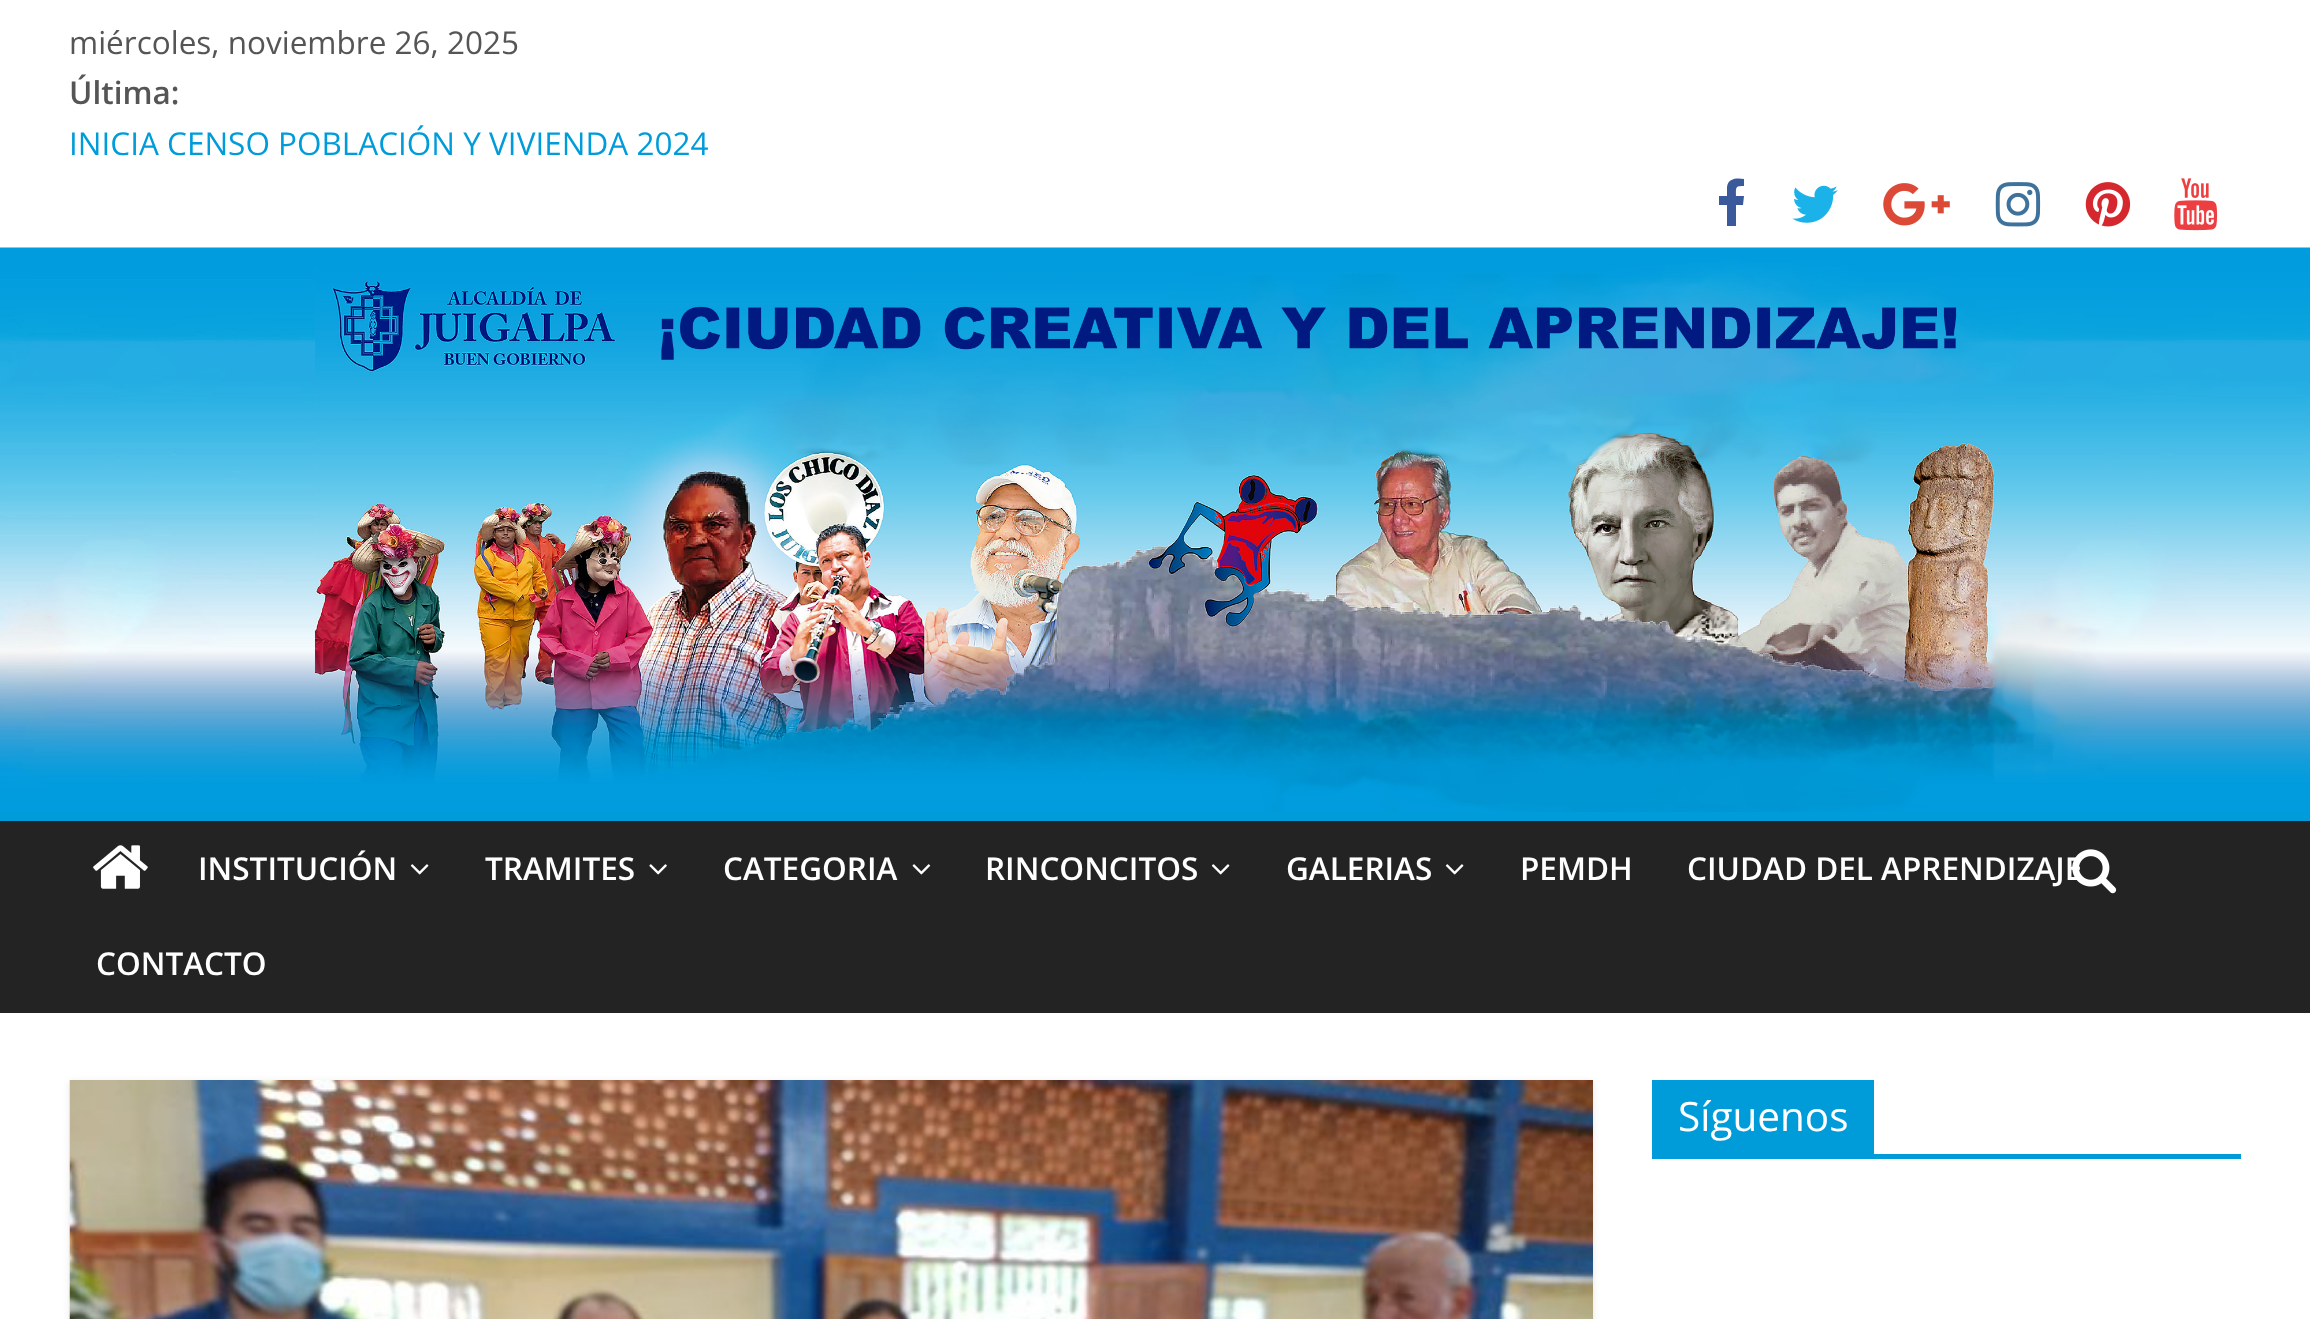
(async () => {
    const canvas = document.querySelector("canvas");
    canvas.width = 2310;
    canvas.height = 1319;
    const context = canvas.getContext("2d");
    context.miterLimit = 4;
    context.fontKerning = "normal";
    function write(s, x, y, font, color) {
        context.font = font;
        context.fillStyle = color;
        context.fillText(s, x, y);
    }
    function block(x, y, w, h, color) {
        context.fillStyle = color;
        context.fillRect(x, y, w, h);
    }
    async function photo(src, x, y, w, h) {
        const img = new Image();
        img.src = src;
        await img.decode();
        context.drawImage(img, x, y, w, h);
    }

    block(0, 0, 2310, 1319, "rgb(255, 255, 255)");
    write("miércoles, noviembre 26, 2025", 69, 54, "31.5px Open Sans", "rgb(85, 85, 85)");
    write("Última:", 69, 104, "600 31.5px Open Sans", "rgb(85, 85, 85)");
    write("INICIA CENSO POBLACIÓN Y VIVIENDA 2024", 69, 155, "31.5px Open Sans", "rgb(0, 156, 218)");
    context.fillStyle = "rgb(59, 90, 155)";
    context.beginPath();
    context.moveTo(1744, 179);
    context.lineTo(1744, 186);
    context.bezierCurveTo(1735, 186, 1736, 187, 1736, 196);
    context.lineTo(1744, 196);
    context.lineTo(1743, 205);
    context.lineTo(1736, 205);
    context.lineTo(1736, 226);
    context.lineTo(1727, 226);
    context.lineTo(1727, 205);
    context.lineTo(1719, 205);
    context.lineTo(1719, 196);
    context.lineTo(1727, 196);
    context.lineTo(1727, 187);
    context.bezierCurveTo(1728, 178, 1737, 178, 1744, 179);
    context.closePath();
    context.fill();
    await photo("media/1.png", 1792, 185, 46, 38);
    await photo("media/2.png", 1883, 183, 67, 43);
    await photo("media/3.png", 1995, 182, 46, 45);
    await photo("media/4.png", 2085, 182, 46, 45);
    await photo("media/5.png", 2174, 178, 44, 53);
    await photo("media/6.png", 0, 247, 2310, 565);
    block(0, 821, 2310, 192, "rgb(35, 35, 35)");
    block(0, 812, 2310, 9, "rgb(0, 156, 218)");
    await photo("media/7.png", 93, 845, 55, 44);
    write("CIUDAD DEL APRENDIZAJE", 1687, 880, "600 31.5px Open Sans", "rgb(255, 255, 255)");
    await photo("media/8.png", 2072, 849, 45, 45);
    write("INSTITUCIÓN", 198, 880, "600 31.5px Open Sans", "rgb(255, 255, 255)");
    await photo("media/9.png", 410, 864, 19, 11);
    write("TRAMITES", 485, 880, "600 31.5px Open Sans", "rgb(255, 255, 255)");
    await photo("media/10.png", 649, 864, 18, 11);
    write("CATEGORIA", 723, 880, "600 31.5px Open Sans", "rgb(255, 255, 255)");
    await photo("media/11.png", 912, 864, 19, 11);
    write("RINCONCITOS", 985, 880, "600 31.5px Open Sans", "rgb(255, 255, 255)");
    await photo("media/9.png", 1211, 864, 19, 11);
    write("GALERIAS", 1286, 880, "600 31.5px Open Sans", "rgb(255, 255, 255)");
    await photo("media/9.png", 1445, 864, 19, 11);
    write("PEMDH", 1520, 880, "600 31.5px Open Sans", "rgb(255, 255, 255)");
    write("CONTACTO", 96, 975, "600 31.5px Open Sans", "rgb(255, 255, 255)");
    context.fillStyle = "rgba(0, 0, 0, 0.1)";
    context.filter = "blur(3.5px)";
    context.beginPath();
    context.rect(70, 1082, 1523, 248);
    context.fill();
    context.filter = "none";
    await photo("media/12.png", 69, 1080, 1524, 239);
    block(1652, 1154, 589, 5, "rgb(0, 156, 218)");
    block(1652, 1080, 222, 74, "rgb(0, 156, 218)");
    write("Síguenos", 1678, 1131, "40.5px Open Sans", "rgb(255, 255, 255)");
})();
